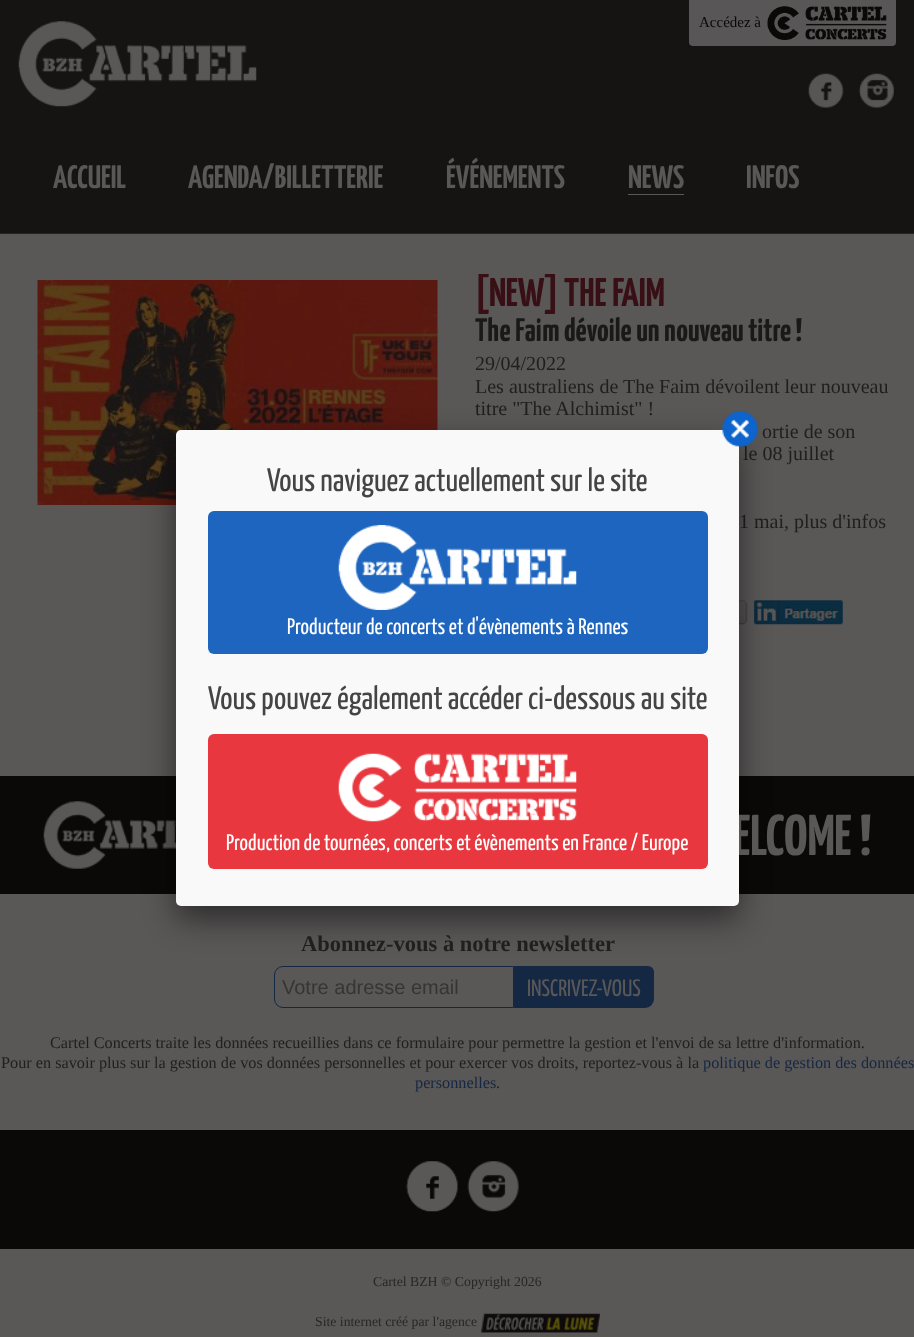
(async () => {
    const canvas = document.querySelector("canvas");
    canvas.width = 914;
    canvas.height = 1337;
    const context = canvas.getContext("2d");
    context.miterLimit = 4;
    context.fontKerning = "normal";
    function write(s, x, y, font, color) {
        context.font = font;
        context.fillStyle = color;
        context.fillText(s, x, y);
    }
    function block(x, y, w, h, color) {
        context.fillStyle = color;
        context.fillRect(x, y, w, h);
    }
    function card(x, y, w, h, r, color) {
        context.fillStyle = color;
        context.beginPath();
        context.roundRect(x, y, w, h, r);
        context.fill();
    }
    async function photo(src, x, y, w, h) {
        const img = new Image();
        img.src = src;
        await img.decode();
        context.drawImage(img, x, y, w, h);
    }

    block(0, 0, 914, 1337, "rgb(90, 87, 87)");
    block(0, 0, 914, 234, "rgb(22, 19, 19)");
    context.fillStyle = "rgb(88, 86, 86)";
    context.beginPath();
    context.roundRect(689, 0, 207, 46, [0, 0, 4, 4]);
    context.fill();
    write("Accédez à", 699, 27, "15px Liberation Serif", "rgb(11, 8, 8)");
    await photo("media/1.png", 767, 6, 120, 34);
    await photo("media/2.png", 18, 21, 239, 86);
    await photo("media/3.png", 808, 73, 36, 35);
    await photo("media/4.png", 858, 73, 36, 35);
    write("ACCUEIL", 53, 188, "bold 32.5px Yanone Kaffeesatz", "rgb(90, 87, 87)");
    write("AGENDA/BILLETTERIE", 188, 188, "bold 32.5px Yanone Kaffeesatz", "rgb(90, 87, 87)");
    write("ÉVÉNEMENTS", 446, 188, "bold 32.5px Yanone Kaffeesatz", "rgb(90, 87, 87)");
    write("NEWS", 628, 188, "bold 32.5px Yanone Kaffeesatz", "rgb(90, 87, 87)");
    block(628, 194, 56, 1, "rgb(90, 87, 87)");
    write("INFOS", 746, 188, "bold 32.5px Yanone Kaffeesatz", "rgb(90, 87, 87)");
    await photo("media/5.png", 0, 233, 914, 1);
    await photo("media/6.png", 37, 280, 401, 225);
    context.save();
    context.beginPath();
    context.rect(25, 274, 865, 445);
    context.clip();
    write("[NEW] THE FAIM", 475, 306, "bold 40px Yanone Kaffeesatz", "rgb(56, 15, 20)");
    context.restore();
    write("The Faim dévoile un nouveau titre !", 475, 341, "bold 32.5px Yanone Kaffeesatz", "rgb(27, 24, 24)");
    write("29/04/2022", 475, 370, "20px Liberation Serif", "rgb(32, 30, 30)");
    write("Les australiens de The Faim dévoilent leur nouveau", 475, 393, "20px Liberation Serif", "rgb(32, 30, 30)");
    write("titre \"The Alchimist\" !", 475, 415, "20px Liberation Serif", "rgb(32, 30, 30)");
    write("ortie de son", 762, 438, "20px Liberation Serif", "rgb(32, 30, 30)");
    write("le 08 juillet", 743, 460, "20px Liberation Serif", "rgb(32, 30, 30)");
    write("1 mai, plus d'infos", 739, 528, "20px Liberation Serif", "rgb(32, 30, 30)");
    await photo("media/7.png", 739, 600, 9, 25);
    await photo("media/8.png", 752, 600, 92, 25);
    block(0, 776, 914, 118, "rgb(11, 8, 8)");
    await photo("media/12.png", 43, 801, 133, 68);
    context.beginPath();
    context.roundRect(274.5, 966.5, 239, 41, [8.5, 0, 0, 8.5]);
    context.strokeStyle = "rgb(20, 40, 67)";
    context.stroke();
    context.fillStyle = "rgb(20, 40, 67)";
    context.beginPath();
    context.roundRect(514, 966, 140, 42, [0, 6, 9, 0]);
    context.fill();
    context.fillStyle = "rgba(0, 0, 0, 0.5)";
    context.filter = "blur(15.5px)";
    context.beginPath();
    context.roundRect(176, 443, 563, 476, 5);
    context.fill();
    context.filter = "none";
    write("ELCOME !", 733, 855, "bold 57.5px Yanone Kaffeesatz", "rgb(90, 87, 87)");
    card(176, 430, 563, 476, 5, "rgb(249, 249, 249)");
    await photo("media/9.png", 722, 411, 36, 36);
    write("Vous naviguez actuellement sur le site", 267, 491, "32.5px Yanone Kaffeesatz", "rgb(68, 68, 68)");
    card(208, 511, 500, 143, 6, "rgb(29, 101, 191)");
    await photo("media/10.png", 338, 525, 239, 85);
    write("Producteur de concerts et d'évènements à Rennes", 287, 634, "22.5px Yanone Kaffeesatz", "rgb(255, 255, 255)");
    write("Vous pouvez également accéder ci-dessous au site", 208, 709, "32.5px Yanone Kaffeesatz", "rgb(68, 68, 68)");
    card(208, 734, 500, 135, 6, "rgb(232, 55, 62)");
    await photo("media/11.png", 338, 753, 239, 69);
    write("Production de tournées, concerts et évènements en France / Europe", 226, 850, "22.5px Yanone Kaffeesatz", "rgb(255, 255, 255)");
    write("Abonnez-vous à notre newsletter", 301, 951, "bold 22.5px Liberation Serif", "rgb(32, 30, 30)");
    write("Votre adresse email", 282, 994, "20px Liberation Sans", "rgb(55, 52, 52)");
    write("INSCRIVEZ-VOUS", 527, 996, "23.75px Yanone Kaffeesatz", "rgb(90, 87, 87)");
    write("Cartel Concerts traite les données recueillies dans ce formulaire pour permettre la gestion et l'envoi de sa lettre d'information.", 50, 1048, "16.25px Liberation Serif", "rgb(32, 30, 30)");
    write("Pour en savoir plus sur la gestion de vos données personnelles et pour exercer vos droits, reportez-vous à la", 1, 1068, "16.25px Liberation Serif", "rgb(32, 30, 30)");
    write("politique de gestion des données", 703, 1068, "16.25px Liberation Serif", "rgb(20, 40, 67)");
    write("personnelles", 415, 1088, "16.25px Liberation Serif", "rgb(20, 40, 67)");
    write(".", 496, 1088, "16.25px Liberation Serif", "rgb(32, 30, 30)");
    block(0, 1130, 914, 119, "rgb(11, 8, 8)");
    await photo("media/13.png", 406, 1161, 52, 51);
    await photo("media/14.png", 467, 1161, 52, 51);
    write("Cartel BZH © Copyright 2026", 373, 1286, "13.75px Liberation Serif", "rgb(41, 38, 38)");
    write("Site internet créé par l'agence", 315, 1326, "13.75px Liberation Serif", "rgb(41, 38, 38)");
    await photo("media/15.png", 481, 1313, 119, 20);
})();
